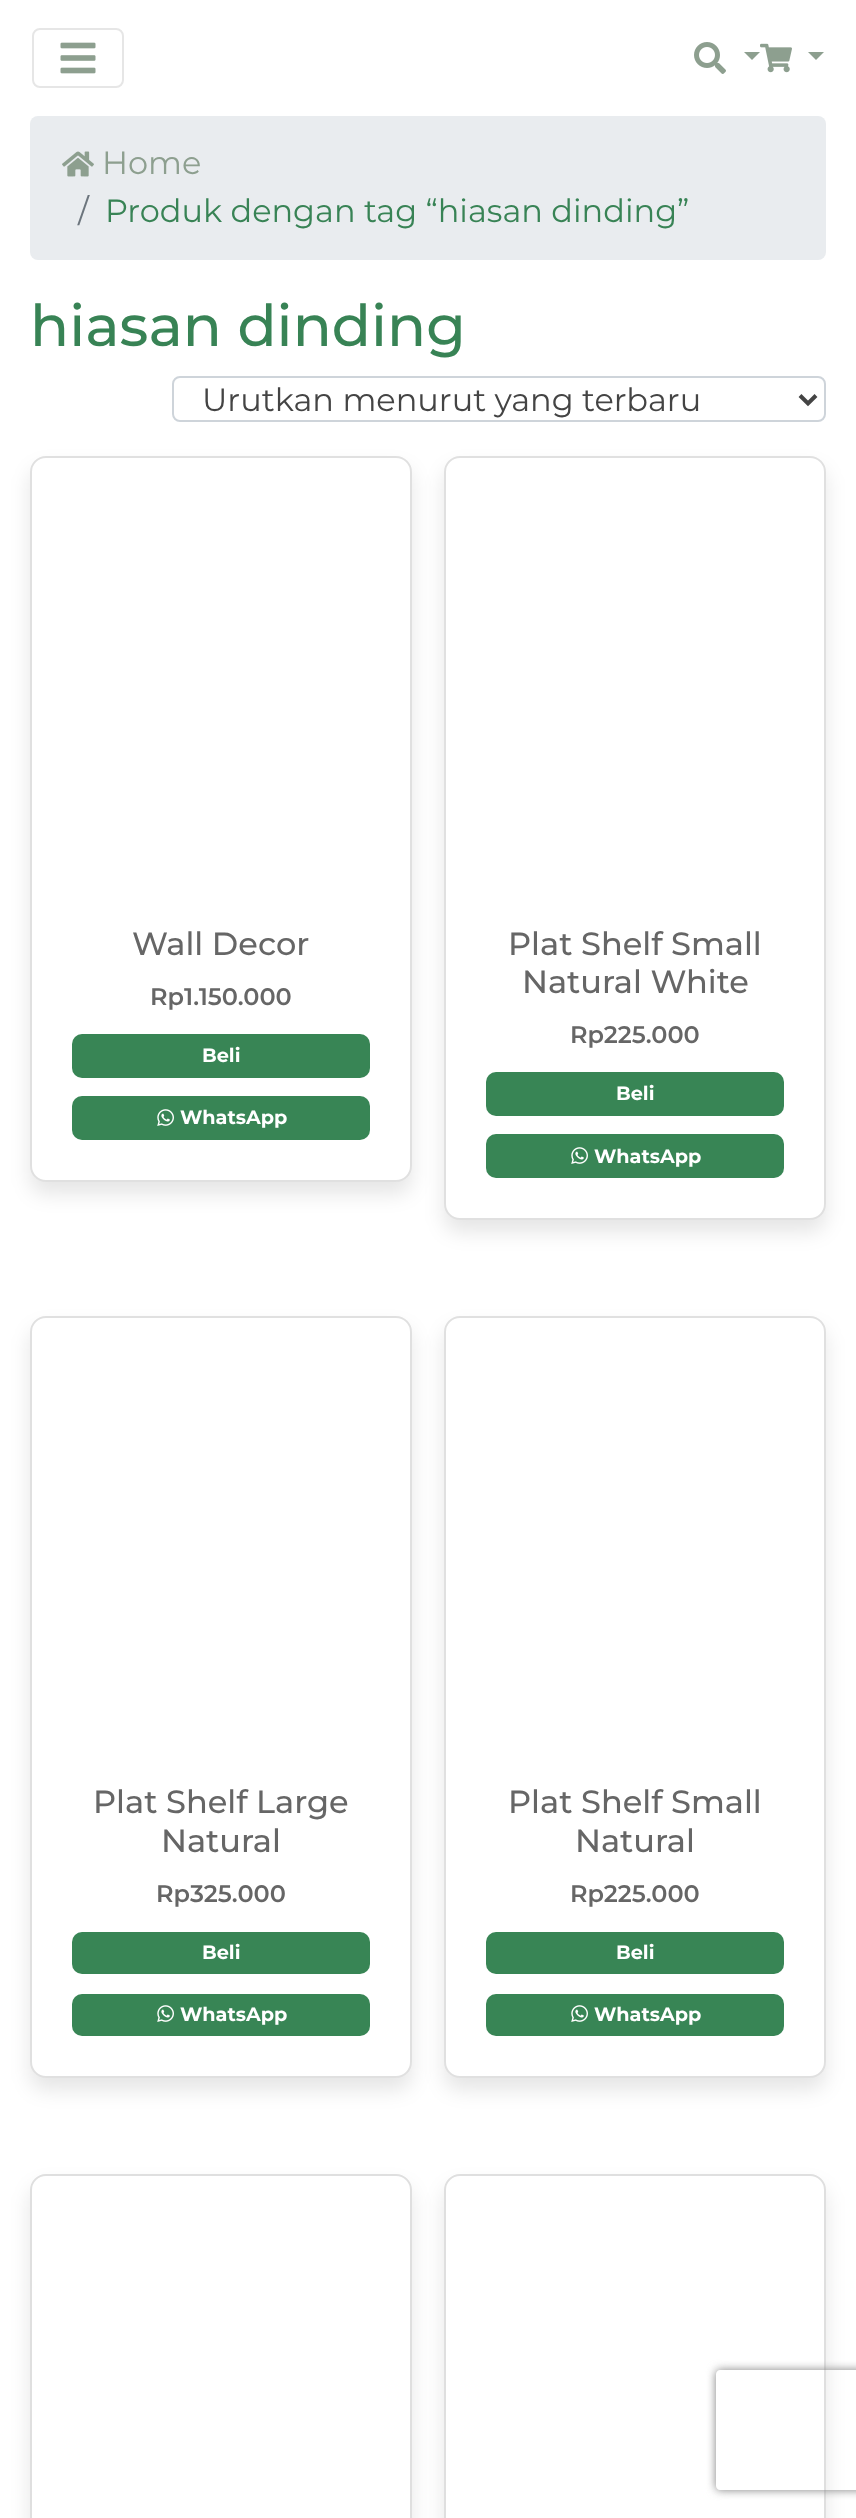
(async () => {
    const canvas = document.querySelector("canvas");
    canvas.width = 856;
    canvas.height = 2518;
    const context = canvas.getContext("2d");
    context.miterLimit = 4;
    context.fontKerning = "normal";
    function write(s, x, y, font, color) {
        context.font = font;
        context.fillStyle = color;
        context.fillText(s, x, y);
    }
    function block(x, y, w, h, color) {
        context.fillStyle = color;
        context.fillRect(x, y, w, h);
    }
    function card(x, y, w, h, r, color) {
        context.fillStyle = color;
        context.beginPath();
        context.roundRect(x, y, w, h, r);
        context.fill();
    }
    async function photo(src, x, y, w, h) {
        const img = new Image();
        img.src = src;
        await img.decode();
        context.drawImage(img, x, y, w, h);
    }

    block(0, 0, 856, 2518, "rgb(255, 255, 255)");
    context.beginPath();
    context.roundRect(33, 29, 90, 58, 7);
    context.strokeStyle = "rgb(230, 230, 230)";
    context.lineWidth = 2;
    context.stroke();
    await photo("media/1.png", 60, 42, 36, 32);
    await photo("media/2.png", 694, 42, 32, 32);
    context.fillStyle = "rgb(141, 159, 143)";
    context.beginPath();
    context.moveTo(744, 52);
    context.lineTo(760, 52);
    context.lineTo(752, 60);
    context.closePath();
    context.fill();
    await photo("media/3.png", 760, 43, 32, 30);
    context.beginPath();
    context.moveTo(808, 52);
    context.lineTo(824, 52);
    context.lineTo(816, 60);
    context.closePath();
    context.fill();
    card(30, 116, 796, 144, 8, "rgb(233, 236, 239)");
    await photo("media/4.png", 62, 151, 32, 26);
    write("Home", 102, 174, "32px Montserrat", "rgb(141, 159, 143)");
    write("/", 78, 222, "32px Montserrat", "rgb(108, 117, 125)");
    write("Produk dengan tag “hiasan dinding”", 105, 222, "32px Montserrat", "rgb(56, 131, 85)");
    write("hiasan dinding", 30, 346, "500 57.5px Montserrat", "rgb(56, 131, 85)");
    context.beginPath();
    context.roundRect(173, 377, 652, 44, 7);
    context.strokeStyle = "rgb(206, 212, 218)";
    context.stroke();
    context.beginPath();
    context.moveTo(800, 395.5);
    context.lineTo(808, 403.5);
    context.lineTo(816, 395.5);
    context.strokeStyle = "rgb(68, 68, 68)";
    context.lineWidth = 4;
    context.stroke();
    write("Urutkan menurut yang terbaru", 202, 411, "32px Montserrat", "rgb(68, 68, 68)");
    context.fillStyle = "rgba(0, 0, 0, 0.1)";
    context.filter = "blur(10px)";
    context.beginPath();
    context.roundRect(30, 468, 382, 726, 16);
    context.fill();
    context.filter = "none";
    card(30, 456, 382, 726, 16, "rgb(255, 255, 255)");
    context.beginPath();
    context.roundRect(31, 457, 380, 724, 15);
    context.strokeStyle = "rgba(0, 0, 0, 0.12)";
    context.lineWidth = 2;
    context.stroke();
    write("Wall Decor", 132, 955, "500 32px Montserrat", "rgb(102, 102, 102)");
    write("Rp", 150, 1005, "600 24px Montserrat", "rgb(102, 102, 102)");
    write("1.150.000", 184, 1005, "600 24px Montserrat", "rgb(102, 102, 102)");
    card(72, 1034, 298, 44, 10, "rgb(56, 133, 85)");
    write("Beli", 202, 1062, "bold 19.25px Montserrat", "rgb(255, 255, 255)");
    card(72, 1096, 298, 44, 10, "rgb(56, 133, 85)");
    await photo("media/5.png", 157, 1109, 17, 17);
    write("WhatsApp", 180, 1124, "bold 19.25px Montserrat", "rgb(255, 255, 255)");
    context.fillStyle = "rgba(0, 0, 0, 0.1)";
    context.filter = "blur(10px)";
    context.beginPath();
    context.roundRect(444, 468, 382, 764, 16);
    context.fill();
    context.filter = "none";
    card(444, 456, 382, 764, 16, "rgb(255, 255, 255)");
    context.beginPath();
    context.roundRect(445, 457, 380, 762, 15);
    context.stroke();
    write("Plat Shelf Small", 508, 955, "500 32px Montserrat", "rgb(102, 102, 102)");
    write("Natural White", 522, 993, "500 32px Montserrat", "rgb(102, 102, 102)");
    write("Rp225.000", 570, 1043, "600 24px Montserrat", "rgb(102, 102, 102)");
    card(486, 1072, 298, 44, 10, "rgb(56, 133, 85)");
    write("Beli", 616, 1100, "bold 19.25px Montserrat", "rgb(255, 255, 255)");
    card(486, 1134, 298, 44, 10, "rgb(56, 133, 85)");
    await photo("media/5.png", 571, 1147, 17, 17);
    write("WhatsApp", 594, 1163, "bold 19.25px Montserrat", "rgb(255, 255, 255)");
    context.fillStyle = "rgba(0, 0, 0, 0.1)";
    context.filter = "blur(10px)";
    context.beginPath();
    context.roundRect(30, 1328, 382, 762, 16);
    context.fill();
    context.filter = "none";
    card(30, 1316, 382, 762, 16, "rgb(255, 255, 255)");
    context.beginPath();
    context.roundRect(31, 1317, 380, 760, 15);
    context.stroke();
    write("Plat Shelf Large", 93, 1813, "500 32px Montserrat", "rgb(102, 102, 102)");
    write("Natural", 161, 1852, "500 32px Montserrat", "rgb(102, 102, 102)");
    write("Rp", 156, 1902, "600 24px Montserrat", "rgb(102, 102, 102)");
    write("325.000", 190, 1902, "600 24px Montserrat", "rgb(102, 102, 102)");
    card(72, 1932, 298, 42, 10, "rgb(56, 133, 85)");
    write("Beli", 202, 1959, "bold 19.25px Montserrat", "rgb(255, 255, 255)");
    card(72, 1994, 298, 42, 10, "rgb(56, 133, 85)");
    await photo("media/5.png", 157, 2005, 17, 17);
    write("WhatsApp", 180, 2021, "bold 19.25px Montserrat", "rgb(255, 255, 255)");
    context.fillStyle = "rgba(0, 0, 0, 0.1)";
    context.filter = "blur(10px)";
    context.beginPath();
    context.roundRect(444, 1328, 382, 762, 16);
    context.fill();
    context.filter = "none";
    card(444, 1316, 382, 762, 16, "rgb(255, 255, 255)");
    context.beginPath();
    context.roundRect(445, 1317, 380, 760, 15);
    context.stroke();
    write("Plat Shelf Small", 508, 1813, "500 32px Montserrat", "rgb(102, 102, 102)");
    write("Natural", 575, 1852, "500 32px Montserrat", "rgb(102, 102, 102)");
    write("Rp225.000", 570, 1902, "600 24px Montserrat", "rgb(102, 102, 102)");
    card(486, 1932, 298, 42, 10, "rgb(56, 133, 85)");
    write("Beli", 616, 1959, "bold 19.25px Montserrat", "rgb(255, 255, 255)");
    card(486, 1994, 298, 42, 10, "rgb(56, 133, 85)");
    await photo("media/5.png", 571, 2005, 17, 17);
    write("WhatsApp", 594, 2021, "bold 19.25px Montserrat", "rgb(255, 255, 255)");
    context.save();
    context.beginPath();
    context.moveTo(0, 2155);
    context.lineTo(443, 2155);
    context.lineTo(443, 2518);
    context.lineTo(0, 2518);
    context.closePath();
    context.moveTo(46, 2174);
    context.lineTo(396, 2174);
    context.bezierCurveTo(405, 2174, 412, 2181, 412, 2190);
    context.lineTo(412, 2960);
    context.bezierCurveTo(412, 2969, 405, 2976, 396, 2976);
    context.lineTo(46, 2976);
    context.bezierCurveTo(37, 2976, 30, 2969, 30, 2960);
    context.lineTo(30, 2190);
    context.bezierCurveTo(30, 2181, 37, 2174, 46, 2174);
    context.closePath();
    context.clip("evenodd");
    context.fillStyle = "rgba(0, 0, 0, 0.1)";
    context.filter = "blur(10px)";
    context.beginPath();
    context.roundRect(30, 2186, 382, 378, 16);
    context.fill();
    context.filter = "none";
    context.restore();
    context.beginPath();
    context.roundRect(31, 2175, 380, 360, 15);
    context.strokeStyle = "rgb(223, 223, 223)";
    context.stroke();
    context.save();
    context.beginPath();
    context.moveTo(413, 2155);
    context.lineTo(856, 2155);
    context.lineTo(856, 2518);
    context.lineTo(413, 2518);
    context.closePath();
    context.moveTo(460, 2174);
    context.lineTo(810, 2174);
    context.bezierCurveTo(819, 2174, 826, 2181, 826, 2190);
    context.lineTo(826, 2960);
    context.bezierCurveTo(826, 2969, 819, 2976, 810, 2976);
    context.lineTo(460, 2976);
    context.bezierCurveTo(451, 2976, 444, 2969, 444, 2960);
    context.lineTo(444, 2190);
    context.bezierCurveTo(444, 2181, 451, 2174, 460, 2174);
    context.closePath();
    context.clip("evenodd");
    context.fillStyle = "rgba(0, 0, 0, 0.1)";
    context.filter = "blur(10px)";
    context.beginPath();
    context.roundRect(444, 2186, 382, 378, 16);
    context.fill();
    context.filter = "none";
    context.restore();
    context.beginPath();
    context.roundRect(445, 2175, 380, 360, 15);
    context.stroke();
    context.save();
    context.beginPath();
    context.moveTo(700, 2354);
    context.lineTo(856, 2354);
    context.lineTo(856, 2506);
    context.lineTo(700, 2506);
    context.closePath();
    context.moveTo(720, 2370);
    context.lineTo(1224, 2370);
    context.bezierCurveTo(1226, 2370, 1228, 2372, 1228, 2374);
    context.lineTo(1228, 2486);
    context.bezierCurveTo(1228, 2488, 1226, 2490, 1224, 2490);
    context.lineTo(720, 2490);
    context.bezierCurveTo(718, 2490, 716, 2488, 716, 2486);
    context.lineTo(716, 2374);
    context.bezierCurveTo(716, 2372, 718, 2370, 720, 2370);
    context.closePath();
    context.clip("evenodd");
    context.fillStyle = "rgb(128, 128, 128)";
    context.filter = "blur(5px)";
    context.beginPath();
    context.roundRect(716, 2370, 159, 120, 4);
    context.fill();
    context.filter = "none";
    context.restore();
})();
